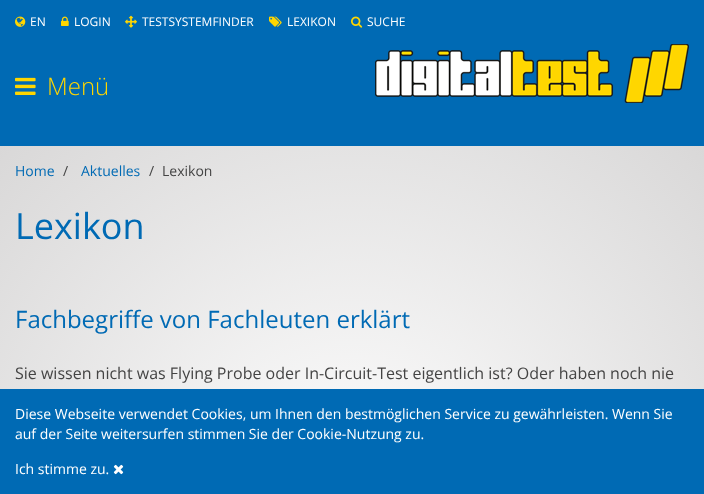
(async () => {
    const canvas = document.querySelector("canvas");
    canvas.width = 704;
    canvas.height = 494;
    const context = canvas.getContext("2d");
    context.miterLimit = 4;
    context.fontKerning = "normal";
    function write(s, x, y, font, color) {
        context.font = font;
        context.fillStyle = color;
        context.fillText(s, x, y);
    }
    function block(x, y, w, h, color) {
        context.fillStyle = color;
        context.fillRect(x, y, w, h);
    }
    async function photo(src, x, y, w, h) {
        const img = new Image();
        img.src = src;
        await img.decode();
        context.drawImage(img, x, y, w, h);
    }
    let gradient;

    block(0, 0, 704, 494, "rgb(0, 106, 180)");
    await photo("media/1.png", 15, 16, 11, 11);
    write("EN", 30, 26, "12px Open Sans", "rgb(255, 255, 255)");
    await photo("media/2.png", 61, 16, 8, 10);
    write("LOGIN", 74, 26, "12px Open Sans", "rgb(255, 255, 255)");
    await photo("media/3.png", 125, 15, 12, 13);
    write("TESTSYSTEMFINDER", 142, 26, "12px Open Sans", "rgb(255, 255, 255)");
    await photo("media/4.png", 269, 16, 13, 11);
    write("LEXIKON", 287, 26, "12px Open Sans", "rgb(255, 255, 255)");
    await photo("media/5.png", 351, 16, 12, 12);
    write("SUCHE", 367, 26, "12px Open Sans", "rgb(255, 255, 255)");
    await photo("media/6.png", 15, 77, 21, 18);
    write("Menü", 47, 95, "300 24px Open Sans", "rgb(255, 214, 0)");
    await photo("media/7.png", 375, 44, 314, 59);
    gradient = context.createRadialGradient(352, 497.01, 0, 352, 497.01, 498);
    gradient.addColorStop(0, "rgb(254, 254, 254)");
    gradient.addColorStop(1, "rgb(217, 216, 216)");
    context.fillStyle = gradient;
    context.beginPath();
    context.rect(0, 146, 704, 243);
    context.save();
    context.clip();
    context.scale(1, 503 / 498);
    context.fillRect(0, 0, 704, 490);
    context.restore();
    write("Home", 15, 176, "14px Open Sans", "rgb(0, 106, 180)");
    write("/", 63, 176, "14px Open Sans", "rgb(68, 68, 68)");
    write("Aktuelles", 81, 176, "14px Open Sans", "rgb(0, 106, 180)");
    write("/", 149, 176, "14px Open Sans", "rgb(68, 68, 68)");
    write("Lexikon", 162, 176, "14px Open Sans", "rgb(68, 68, 68)");
    write("Lexikon", 15, 239, "36px Open Sans", "rgb(0, 106, 180)");
    write("Fachbegriffe von Fachleuten erklärt", 15, 328, "24px Open Sans", "rgb(0, 106, 180)");
    write("Sie wissen nicht was Flying Probe oder In-Circuit-Test eigentlich ist? Oder haben noch nie", 15, 379, "16px Open Sans", "rgb(68, 68, 68)");
    write("Diese Webseite verwendet Cookies, um Ihnen den bestmöglichen Service zu gewährleisten. Wenn Sie", 15, 419, "14px Open Sans", "rgb(255, 255, 255)");
    write("auf der Seite weitersurfen stimmen Sie der Cookie-Nutzung zu.", 15, 439, "14px Open Sans", "rgb(255, 255, 255)");
    write("Ich stimme zu.", 15, 474, "14px Open Sans", "rgb(255, 255, 255)");
    await photo("media/8.png", 113, 464, 11, 11);
})();
